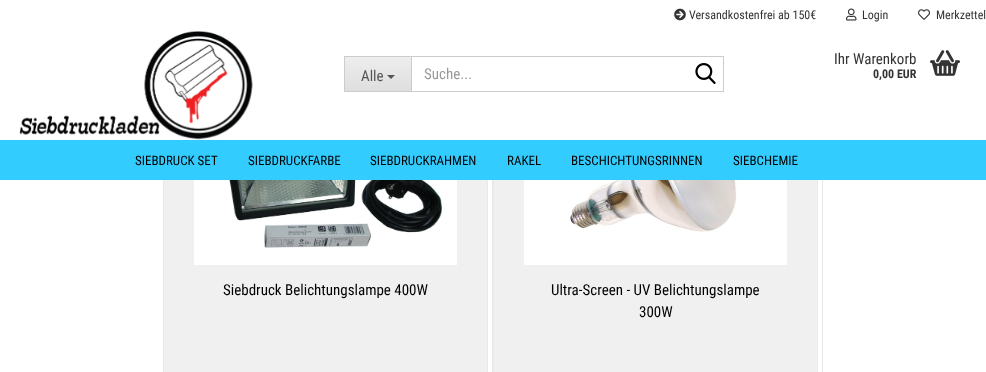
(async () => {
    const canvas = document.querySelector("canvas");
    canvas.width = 986;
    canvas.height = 372;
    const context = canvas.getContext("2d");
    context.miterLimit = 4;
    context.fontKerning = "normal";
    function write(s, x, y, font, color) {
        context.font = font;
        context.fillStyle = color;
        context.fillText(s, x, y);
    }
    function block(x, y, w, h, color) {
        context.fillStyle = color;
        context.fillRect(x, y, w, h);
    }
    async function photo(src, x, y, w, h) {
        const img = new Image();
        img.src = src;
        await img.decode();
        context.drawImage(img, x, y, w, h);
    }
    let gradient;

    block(0, 0, 986, 372, "rgb(255, 255, 255)");
    block(164, 180, 323, 192, "rgb(240, 240, 240)");
    context.strokeStyle = "rgb(234, 234, 234)";
    context.strokeRect(163.5, 44.5, 324, 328);
    block(494, 180, 323, 192, "rgb(240, 240, 240)");
    context.strokeRect(493.5, 44.5, 324, 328);
    block(163, 44, 655, 96, "rgb(255, 255, 255)");
    await photo("media/1.png", 674, 8, 12, 13);
    write("Versandkostenfrei ab 150€", 689, 19, "12px Roboto Condensed", "rgb(51, 51, 51)");
    await photo("media/2.png", 846, 8, 11, 13);
    write("Login", 862, 19, "12px Roboto Condensed", "rgb(51, 51, 51)");
    await photo("media/3.png", 918, 9, 12, 11);
    write("Merkzettel", 936, 19, "12px Roboto Condensed", "rgb(51, 51, 51)");
    await photo("media/4.png", 19, 31, 234, 109);
    gradient = context.createLinearGradient(378, 57, 378, 91);
    gradient.addColorStop(0, "rgb(238, 238, 238)");
    gradient.addColorStop(1, "rgb(222, 222, 222)");
    context.fillStyle = gradient;
    context.fillRect(345, 57, 66, 34);
    block(344, 56, 67, 1, "rgb(204, 204, 204)");
    block(344, 91, 67, 1, "rgb(204, 204, 204)");
    block(344, 56, 1, 36, "rgb(204, 204, 204)");
    write("Alle", 361, 81, "15px Roboto Condensed", "rgb(85, 85, 85)");
    context.beginPath();
    context.moveTo(387, 75);
    context.lineTo(395, 75);
    context.lineTo(391, 79);
    context.closePath();
    context.fill();
    context.strokeStyle = "rgb(204, 204, 204)";
    context.strokeRect(411.5, 56.5, 312, 35);
    write("Suche...", 424, 79, "15px Roboto Condensed", "rgb(153, 153, 153)");
    await photo("media/5.png", 695, 63, 21, 21);
    write("Ihr Warenkorb", 834, 64, "15px Roboto Condensed", "rgb(51, 51, 51)");
    write("0,00 EUR", 873, 78, "bold 12px Roboto Condensed", "rgb(51, 51, 51)");
    await photo("media/6.png", 930, 50, 30, 26);
    block(0, 140, 986, 40, "rgb(51, 204, 255)");
    write("SIEBDRUCK SET", 135, 165, "13px Roboto Condensed", "rgb(0, 0, 0)");
    write("SIEBDRUCKFARBE", 248, 165, "13px Roboto Condensed", "rgb(0, 0, 0)");
    write("SIEBDRUCKRAHMEN", 370, 165, "13px Roboto Condensed", "rgb(0, 0, 0)");
    write("RAKEL", 507, 165, "13px Roboto Condensed", "rgb(0, 0, 0)");
    write("BESCHICHTUNGSRINNEN", 571, 165, "13px Roboto Condensed", "rgb(0, 0, 0)");
    write("SIEBCHEMIE", 733, 165, "13px Roboto Condensed", "rgb(0, 0, 0)");
    block(492, 180, 1, 192, "rgb(231, 231, 231)");
    await photo("media/7.png", 194, 180, 263, 85);
    write("Siebdruck Belichtungslampe 400W", 223, 295, "15px Roboto Condensed", "rgb(0, 0, 0)");
    block(822, 180, 1, 192, "rgb(231, 231, 231)");
    await photo("media/8.png", 524, 180, 263, 85);
    write("Ultra-Screen - UV Belichtungslampe", 551, 295, "15px Roboto Condensed", "rgb(0, 0, 0)");
    write("300W", 639, 317, "15px Roboto Condensed", "rgb(0, 0, 0)");
})();
